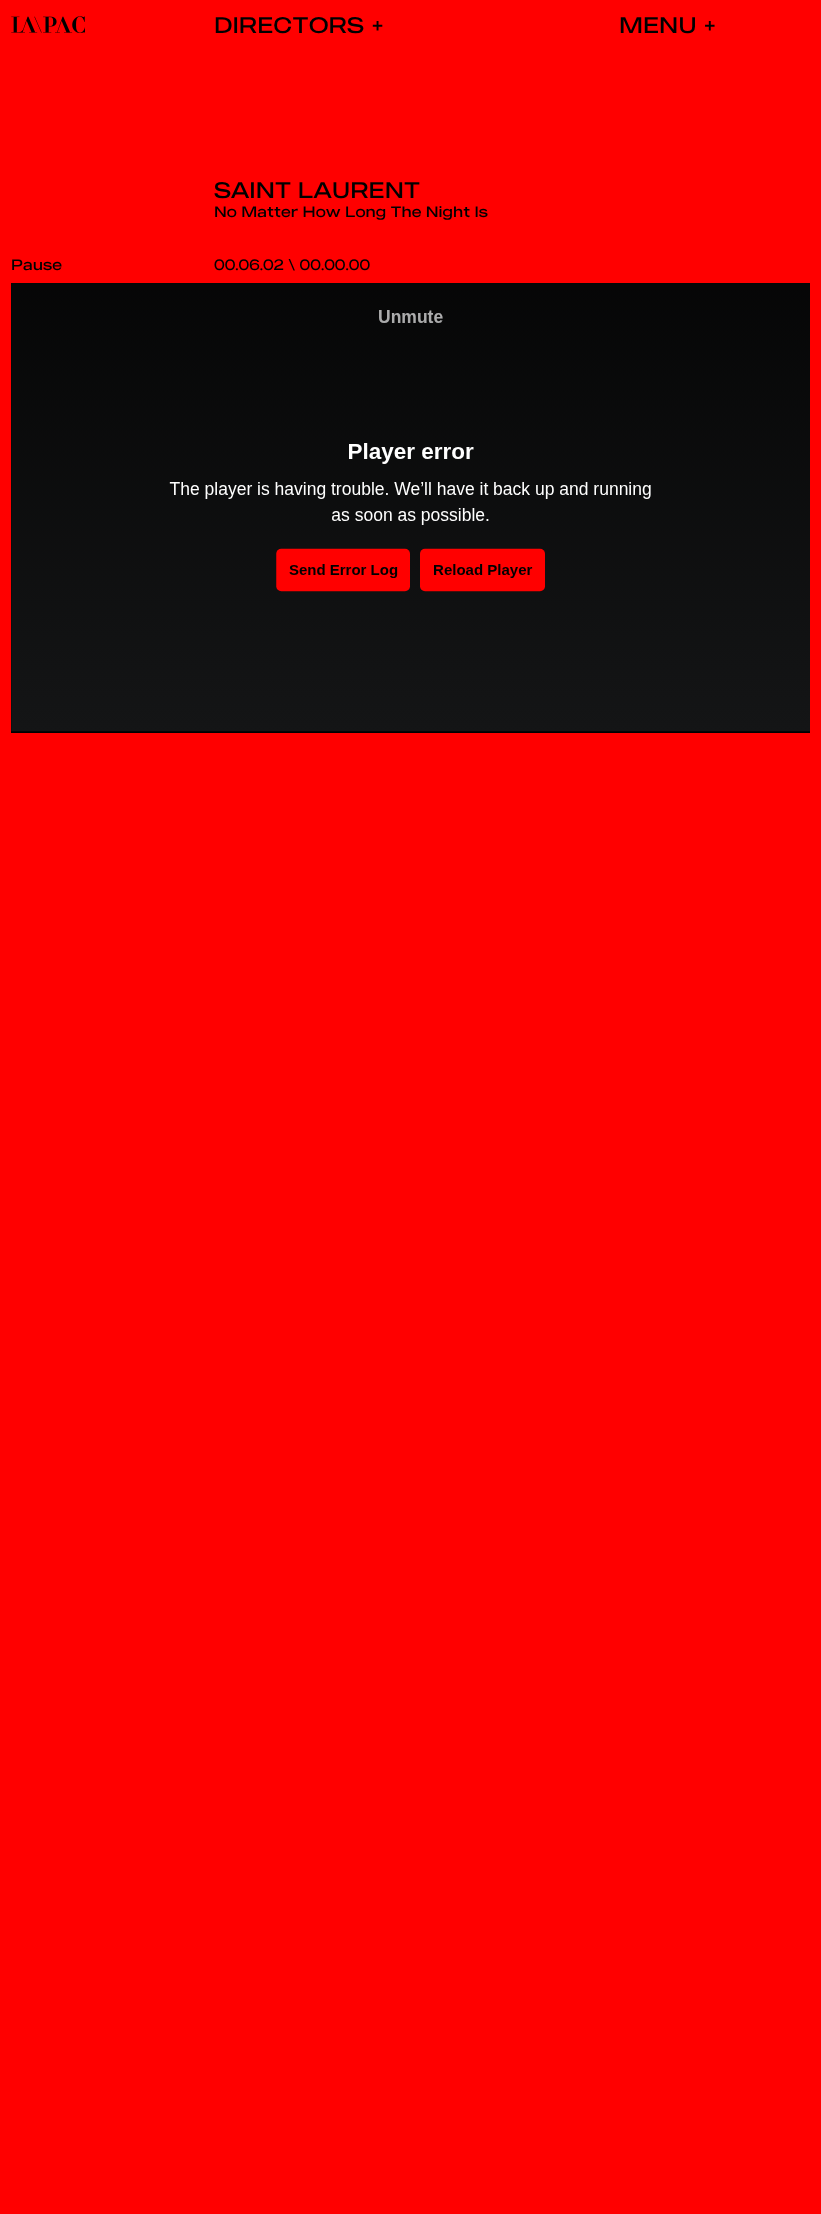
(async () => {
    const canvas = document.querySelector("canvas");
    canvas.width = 821;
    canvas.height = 2214;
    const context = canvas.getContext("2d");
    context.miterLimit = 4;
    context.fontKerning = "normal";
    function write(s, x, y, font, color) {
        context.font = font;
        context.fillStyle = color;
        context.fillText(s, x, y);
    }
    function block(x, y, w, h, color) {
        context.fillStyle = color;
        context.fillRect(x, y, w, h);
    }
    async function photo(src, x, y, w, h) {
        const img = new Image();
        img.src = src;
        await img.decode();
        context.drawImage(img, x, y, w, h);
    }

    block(0, 0, 821, 2214, "rgb(255, 0, 0)");
    await photo("media/1.png", 11, 16, 74, 17);
    write("DIRECTORS", 214, 33, "300 22.5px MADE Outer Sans", "rgb(0, 0, 0)");
    write("+", 371, 33, "300 22.5px MADE Outer Sans", "rgb(0, 0, 0)");
    write("MENU +", 619, 33, "300 22.5px MADE Outer Sans", "rgb(0, 0, 0)");
    write("SAINT LAURENT", 214, 198, "300 22.5px MADE Outer Sans", "rgb(0, 0, 0)");
    write("No Matter How Long The Night Is", 214, 217, "300 15px MADE Outer Sans", "rgb(0, 0, 0)");
    write("Pause", 11, 270, "300 15px MADE Outer Sans", "rgb(0, 0, 0)");
    write("00.06.02 \\ 00.00.00", 214, 270, "300 15px MADE Outer Sans", "rgb(0, 0, 0)");
    block(11, 283, 799, 450, "rgb(0, 0, 0)");
    await photo("media/2.png", 11, 283, 799, 449);
})();
